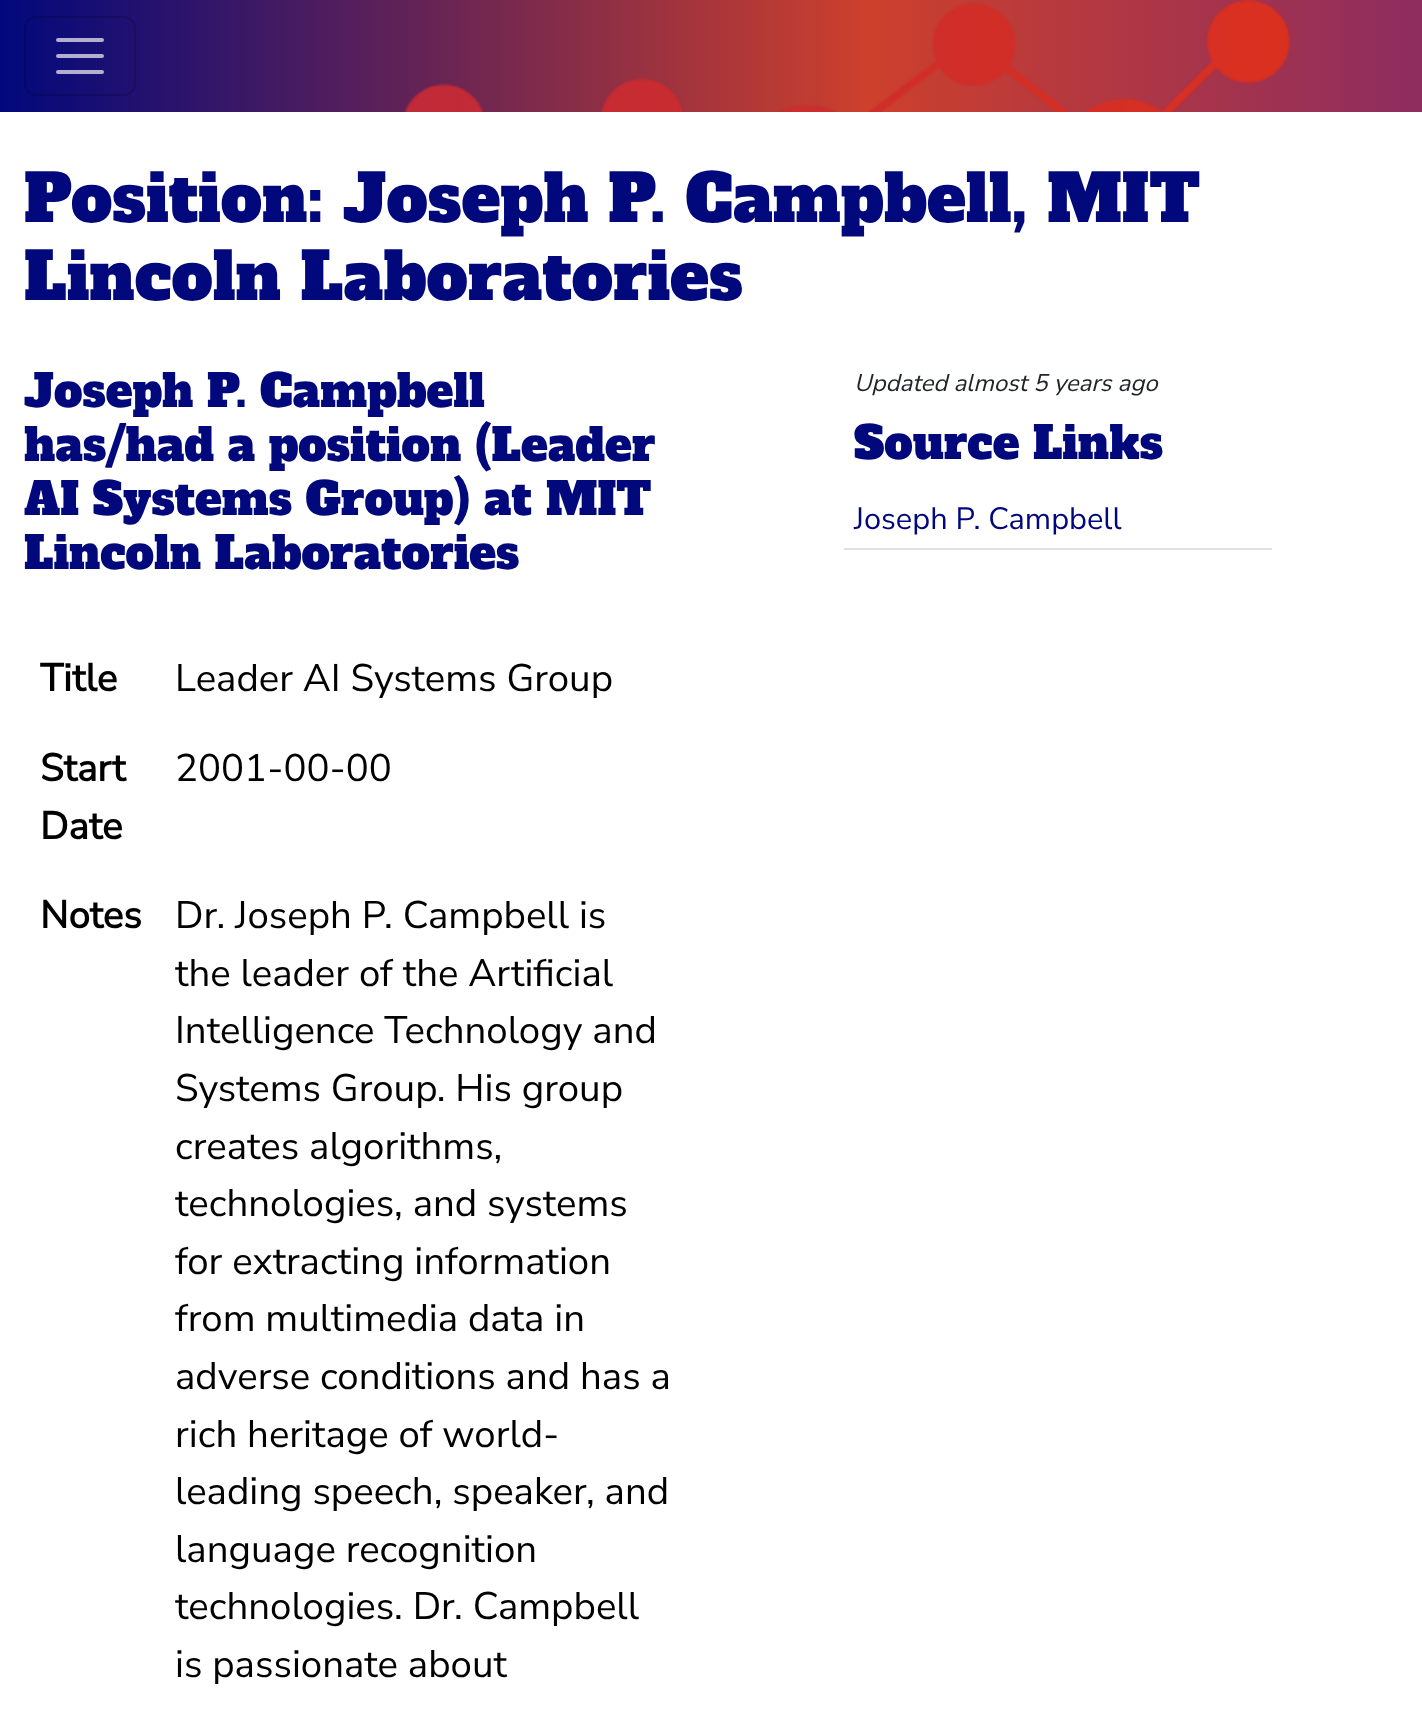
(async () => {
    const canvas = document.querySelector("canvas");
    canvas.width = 1422;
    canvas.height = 1716;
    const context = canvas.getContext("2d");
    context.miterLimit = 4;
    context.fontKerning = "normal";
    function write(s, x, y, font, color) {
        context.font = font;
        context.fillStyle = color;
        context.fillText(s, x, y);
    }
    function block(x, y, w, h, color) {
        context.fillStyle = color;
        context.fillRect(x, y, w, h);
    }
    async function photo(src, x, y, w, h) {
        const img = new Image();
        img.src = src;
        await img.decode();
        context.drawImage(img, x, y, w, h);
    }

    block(0, 0, 1422, 1716, "rgb(255, 255, 255)");
    await photo("media/1.png", 0, 0, 1422, 112);
    context.beginPath();
    context.roundRect(25, 17, 110, 78, 11);
    context.strokeStyle = "rgba(0, 0, 0, 0.15)";
    context.lineWidth = 2;
    context.stroke();
    context.beginPath();
    context.moveTo(58, 40);
    context.lineTo(102, 40);
    context.moveTo(58, 56);
    context.lineTo(102, 56);
    context.moveTo(58, 72);
    context.lineTo(102, 72);
    context.strokeStyle = "rgba(229, 230, 241, 0.75)";
    context.lineWidth = 4;
    context.lineCap = "round";
    context.stroke();
    write("Position: Joseph P. Campbell, MIT", 24, 222, "65.3px Alfa Slab One", "rgb(1, 8, 124)");
    write("Lincoln Laboratories", 24, 300, "65.3px Alfa Slab One", "rgb(1, 8, 124)");
    write("Joseph P. Campbell", 24, 407, "45px Alfa Slab One", "rgb(1, 8, 124)");
    write("has/had a position (Leader", 24, 461, "45px Alfa Slab One", "rgb(1, 8, 124)");
    write("AI Systems Group) at", 24, 515, "45px Alfa Slab One", "rgb(1, 8, 124)");
    write("MIT", 546, 515, "45px Alfa Slab One", "rgb(1, 8, 124)");
    write("Lincoln Laboratories", 24, 569, "45px Alfa Slab One", "rgb(1, 8, 124)");
    write("Title", 40, 691, "bold 38.4px Nunito Sans", "rgb(0, 0, 0)");
    write("Leader AI Systems Group", 175, 691, "38.4px Nunito Sans", "rgb(0, 0, 0)");
    write("Start", 40, 781, "bold 38.4px Nunito Sans", "rgb(0, 0, 0)");
    write("Date", 40, 839, "bold 38.4px Nunito Sans", "rgb(0, 0, 0)");
    write("2001-00-00", 175, 781, "38.4px Nunito Sans", "rgb(0, 0, 0)");
    write("Notes", 40, 928, "bold 38.4px Nunito Sans", "rgb(0, 0, 0)");
    write("Dr. Joseph P. Campbell is", 175, 928, "38.4px Nunito Sans", "rgb(0, 0, 0)");
    write("the leader of the Artificial", 175, 986, "38.4px Nunito Sans", "rgb(0, 0, 0)");
    write("Intelligence Technology and", 175, 1043, "38.4px Nunito Sans", "rgb(0, 0, 0)");
    write("Systems Group. His group", 175, 1101, "38.4px Nunito Sans", "rgb(0, 0, 0)");
    write("creates algorithms,", 175, 1159, "38.4px Nunito Sans", "rgb(0, 0, 0)");
    write("technologies, and systems", 175, 1216, "38.4px Nunito Sans", "rgb(0, 0, 0)");
    write("for extracting information", 175, 1274, "38.4px Nunito Sans", "rgb(0, 0, 0)");
    write("from multimedia data in", 175, 1331, "38.4px Nunito Sans", "rgb(0, 0, 0)");
    write("adverse conditions and has a", 175, 1389, "38.4px Nunito Sans", "rgb(0, 0, 0)");
    write("rich heritage of world-", 175, 1447, "38.4px Nunito Sans", "rgb(0, 0, 0)");
    write("leading speech, speaker, and", 175, 1504, "38.4px Nunito Sans", "rgb(0, 0, 0)");
    write("language recognition", 175, 1562, "38.4px Nunito Sans", "rgb(0, 0, 0)");
    write("technologies. Dr. Campbell", 175, 1619, "38.4px Nunito Sans", "rgb(0, 0, 0)");
    write("is passionate about", 175, 1677, "38.4px Nunito Sans", "rgb(0, 0, 0)");
    write("Updated almost 5 years ago", 854, 391, "italic 24px Nunito Sans", "rgb(33, 37, 41)");
    write("Source Links", 854, 459, "45px Alfa Slab One", "rgb(1, 8, 124)");
    block(844, 548, 428, 2, "rgb(222, 226, 230)");
    write("Joseph P. Campbell", 854, 529, "30.75px Nunito Sans", "rgb(1, 8, 124)");
})();
